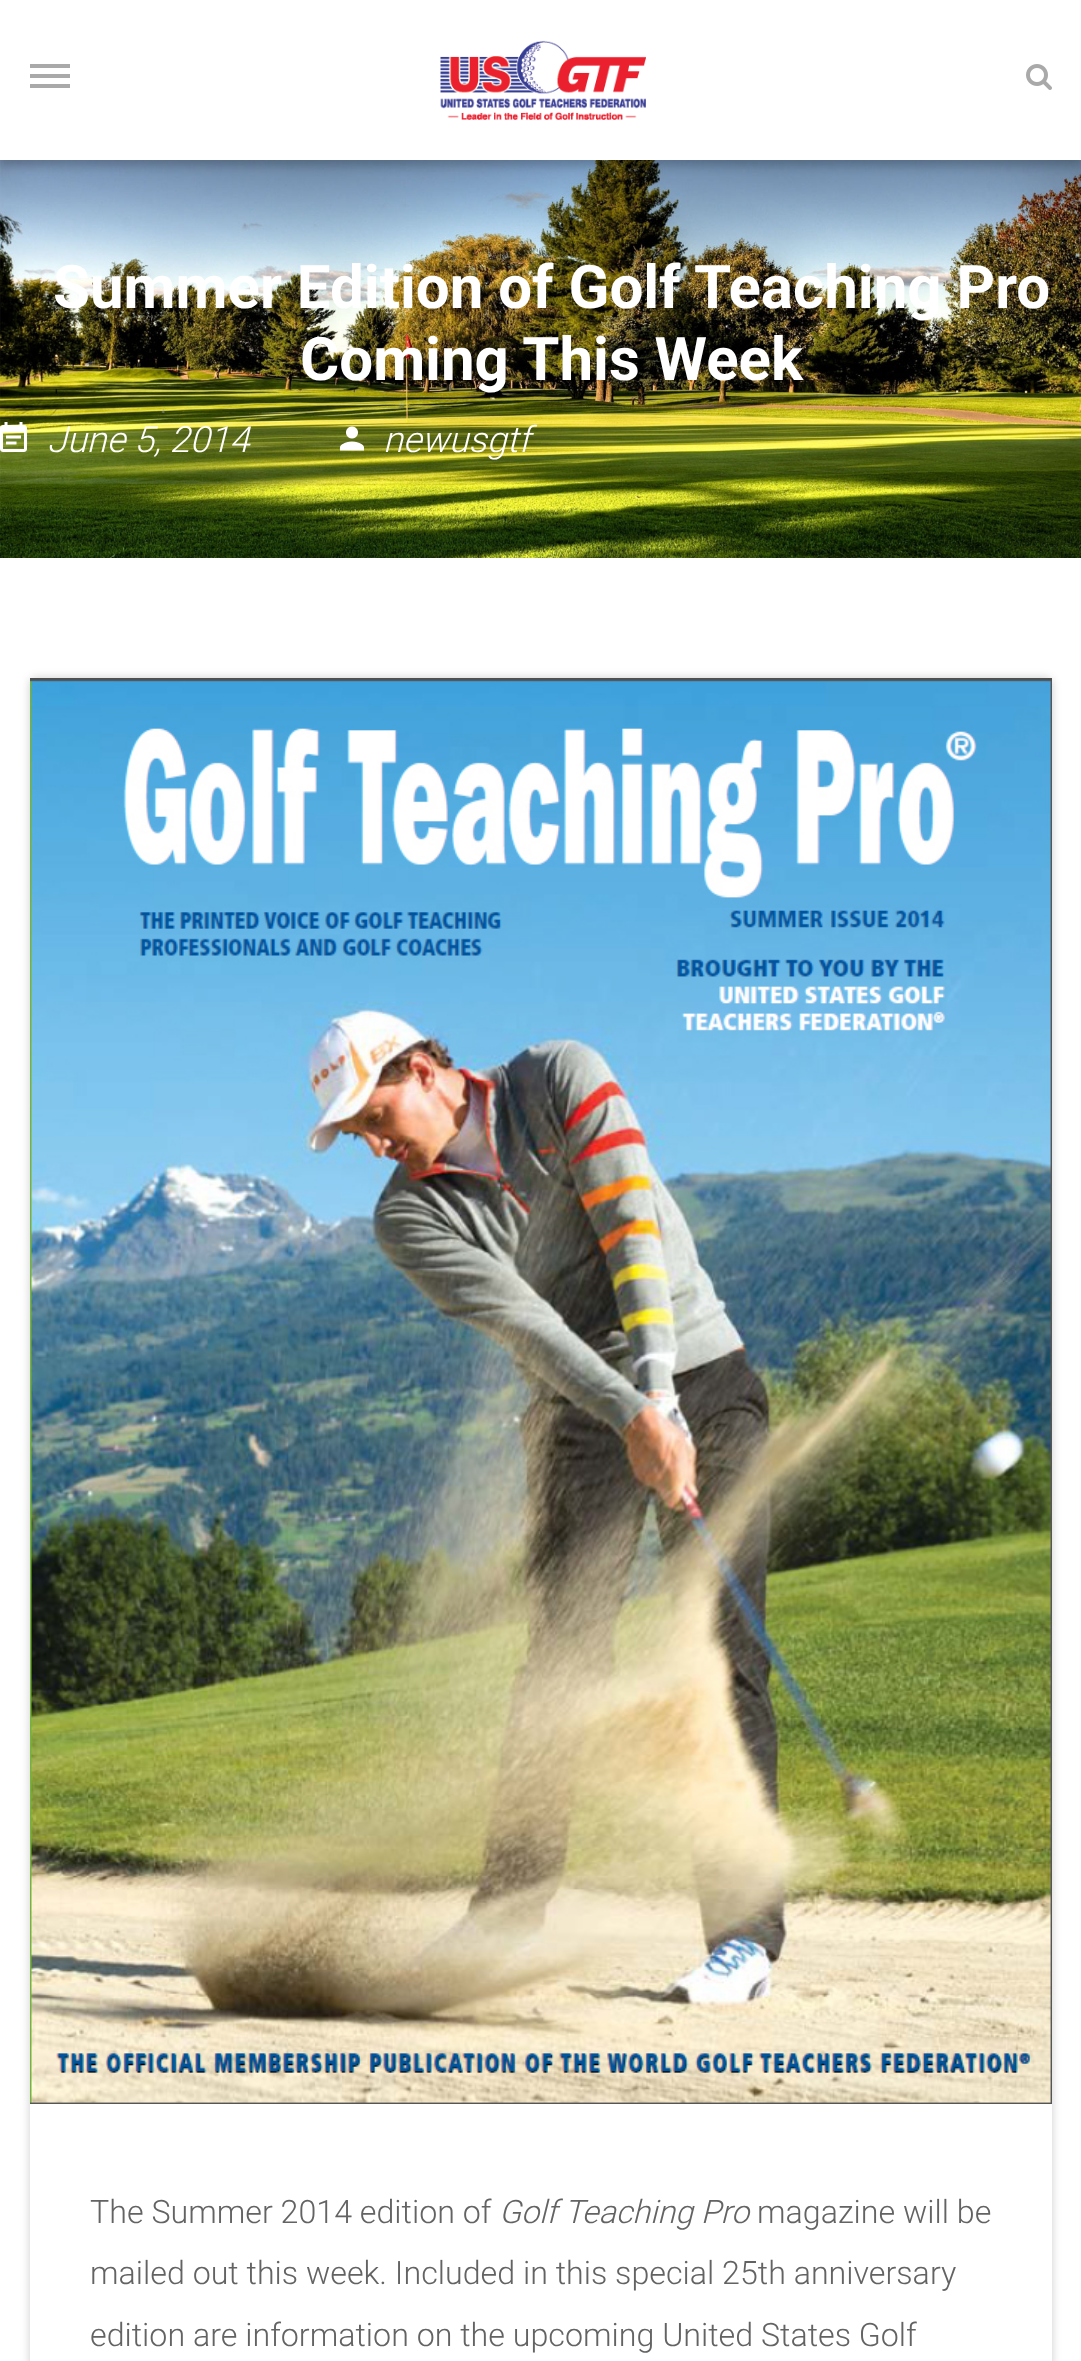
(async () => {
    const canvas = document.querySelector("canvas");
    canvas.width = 1081;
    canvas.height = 2361;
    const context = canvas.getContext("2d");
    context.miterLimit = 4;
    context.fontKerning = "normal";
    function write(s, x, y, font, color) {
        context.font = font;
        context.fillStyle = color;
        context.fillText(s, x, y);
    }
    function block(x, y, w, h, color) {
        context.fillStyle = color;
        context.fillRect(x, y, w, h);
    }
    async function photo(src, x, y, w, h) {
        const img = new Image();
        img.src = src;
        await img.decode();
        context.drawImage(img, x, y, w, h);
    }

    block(0, 0, 1081, 2361, "rgb(255, 255, 255)");
    await photo("media/3.png", 0, 160, 1081, 398);
    context.fillStyle = "rgba(0, 0, 0, 0.2)";
    context.filter = "blur(5px)";
    context.beginPath();
    context.rect(0, 6, 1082, 160);
    context.fill();
    context.filter = "none";
    block(0, 0, 1081, 160, "rgb(255, 255, 255)");
    block(30, 64, 40, 4, "rgb(169, 169, 169)");
    block(30, 74, 40, 4, "rgb(169, 169, 169)");
    block(30, 84, 40, 4, "rgb(169, 169, 169)");
    await photo("media/1.png", 440, 40, 206, 80);
    await photo("media/2.png", 1026, 64, 26, 26);
    write("Summer Edition of Golf Teaching Pro", 53, 308, "bold 60px Roboto", "rgb(255, 255, 255)");
    write("Coming This Week", 300, 380, "bold 60px Roboto", "rgb(255, 255, 255)");
    await photo("media/4.png", 0, 422, 27, 30);
    write("June 5, 2014", 47, 452, "italic 300 36px Roboto", "rgb(255, 255, 255)");
    await photo("media/5.png", 340, 426, 24, 25);
    write("newusgtf", 383, 452, "italic 300 36px Roboto", "rgb(255, 255, 255)");
    context.fillStyle = "rgba(0, 0, 0, 0.2)";
    context.filter = "blur(5px)";
    context.beginPath();
    context.roundRect(30, 678, 1022, 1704, 6);
    context.fill();
    context.filter = "none";
    block(30, 2104, 1022, 257, "rgb(255, 255, 255)");
    await photo("media/6.png", 30, 678, 1022, 1426);
    write("The Summer 2014 edition of", 90, 2223, "300 32.2px Roboto", "rgb(99, 99, 99)");
    write("Golf Teaching Pro", 499, 2223, "italic 300 32.2px Roboto", "rgb(99, 99, 99)");
    write("magazine will be", 757, 2223, "300 32.2px Roboto", "rgb(99, 99, 99)");
    write("mailed out this week. Included in this special 25th anniversary", 90, 2284, "300 32.2px Roboto", "rgb(99, 99, 99)");
    write("edition are information on the upcoming United States Golf", 90, 2346, "300 32.2px Roboto", "rgb(99, 99, 99)");
})();
